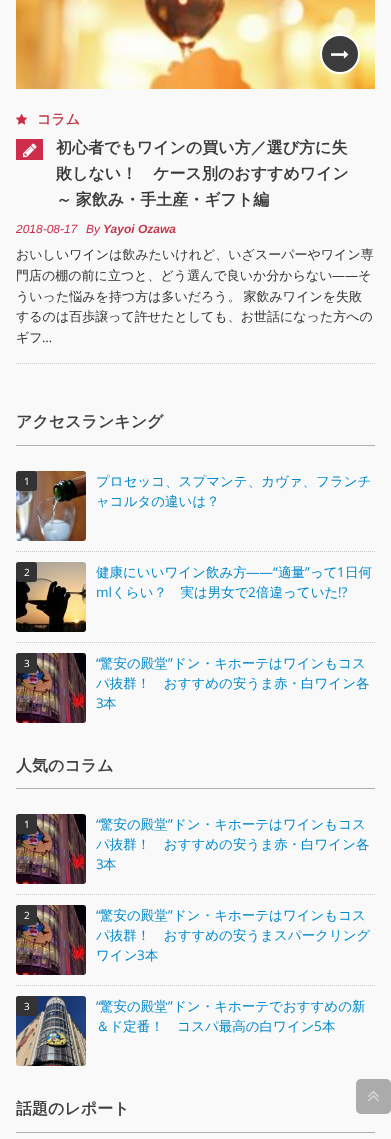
(async () => {
    const canvas = document.querySelector("canvas");
    canvas.width = 391;
    canvas.height = 1139;
    const context = canvas.getContext("2d");
    context.miterLimit = 4;
    context.fontKerning = "normal";
    function write(s, x, y, font, color) {
        context.font = font;
        context.fillStyle = color;
        context.fillText(s, x, y);
    }
    function block(x, y, w, h, color) {
        context.fillStyle = color;
        context.fillRect(x, y, w, h);
    }
    function card(x, y, w, h, r, color) {
        context.fillStyle = color;
        context.beginPath();
        context.roundRect(x, y, w, h, r);
        context.fill();
    }
    async function photo(src, x, y, w, h) {
        const img = new Image();
        img.src = src;
        await img.decode();
        context.drawImage(img, x, y, w, h);
    }

    block(0, 0, 391, 1139, "rgb(249, 249, 249)");
    context.beginPath();
    context.moveTo(16, 363.5);
    context.lineTo(375, 363.5);
    context.strokeStyle = "rgb(206, 206, 206)";
    context.setLineDash([1, 1]);
    context.stroke();
    await photo("media/1.png", 16, 0, 359, 89);
    context.fillStyle = "rgb(60, 60, 60)";
    context.beginPath();
    context.arc(340, 54, 19, 0, Math.PI * 2);
    context.fill();
    context.strokeStyle = "rgb(255, 255, 255)";
    context.lineWidth = 2;
    context.setLineDash([]);
    context.stroke();
    await photo("media/2.png", 331, 50, 18, 9);
    await photo("media/3.png", 16, 114, 12, 11);
    write("コラム", 37, 124, "bold 14px WenQuanYi Zen Hei", "rgb(194, 55, 76)");
    block(16, 139, 27, 21, "rgb(206, 44, 75)");
    await photo("media/4.png", 23, 143, 14, 15);
    write("初心者でもワインの買い方／選び方に失", 56, 153, "bold 16px WenQuanYi Zen Hei", "rgb(58, 58, 58)");
    write("敗しない！　ケース別のおすすめワイン", 56, 179, "bold 16px WenQuanYi Zen Hei", "rgb(58, 58, 58)");
    context.wordSpacing = "-1px";
    write("～ 家飲み・手土産・ギフト編", 56, 205, "bold 16px WenQuanYi Zen Hei", "rgb(58, 58, 58)");
    context.wordSpacing = "0px";
    write("2018-08-17", 16, 233, "italic 12px Liberation Sans", "rgb(206, 44, 75)");
    write("By", 86, 233, "italic 12px Liberation Sans", "rgb(206, 44, 75)");
    write("Yayoi Ozawa", 103, 233, "italic bold 12px Liberation Sans", "rgb(194, 55, 76)");
    write("おいしいワインは飲みたいけれど、いざスーパーやワイン専", 16, 259, "500 13px WenQuanYi Zen Hei", "rgb(51, 51, 51)");
    write("門店の棚の前に立つと、どう選んで良いか分からない", 16, 280, "500 13px WenQuanYi Zen Hei", "rgb(51, 51, 51)");
    write("――", 332, 280, "13px Open Sans", "rgb(51, 51, 51)");
    write("そ", 358, 280, "500 13px WenQuanYi Zen Hei", "rgb(51, 51, 51)");
    context.wordSpacing = "-1px";
    write("ういった悩みを持つ方は多いだろう。 家飲みワインを失敗", 16, 301, "500 13px WenQuanYi Zen Hei", "rgb(51, 51, 51)");
    context.wordSpacing = "0px";
    write("するのは百歩譲って許せたとしても、お世話になった方への", 16, 321, "500 13px WenQuanYi Zen Hei", "rgb(51, 51, 51)");
    write("ギフ", 16, 342, "500 13px WenQuanYi Zen Hei", "rgb(51, 51, 51)");
    write("…", 42, 342, "13px Open Sans", "rgb(51, 51, 51)");
    block(16, 445, 359, 1, "rgb(176, 176, 176)");
    write("アクセスランキング", 16, 427, "bold 16px WenQuanYi Zen Hei", "rgb(64, 64, 64)");
    await photo("media/5.png", 16, 471, 70, 70);
    write("プロセッコ、スプマンテ、カヴァ、フランチ", 96, 486, "500 13.5px WenQuanYi Zen Hei", "rgb(0, 136, 204)");
    write("ャコルタの違いは？", 96, 506, "500 13.5px WenQuanYi Zen Hei", "rgb(0, 136, 204)");
    card(16, 471, 21, 20, 3, "rgb(51, 51, 51)");
    write("1", 24, 485, "10px Open Sans", "rgb(255, 255, 255)");
    context.beginPath();
    context.moveTo(16, 551.5);
    context.lineTo(375, 551.5);
    context.strokeStyle = "rgb(201, 201, 201)";
    context.lineWidth = 1;
    context.setLineDash([1, 1]);
    context.stroke();
    await photo("media/6.png", 16, 562, 70, 70);
    write("健康にいいワイン飲み方", 96, 577, "500 13.5px WenQuanYi Zen Hei", "rgb(0, 136, 204)");
    write("――“", 246, 577, "13.5px Open Sans", "rgb(0, 136, 204)");
    write("適量", 278, 577, "500 13.5px WenQuanYi Zen Hei", "rgb(0, 136, 204)");
    write("”", 305, 577, "13.5px Open Sans", "rgb(0, 136, 204)");
    write("って", 310, 577, "500 13.5px WenQuanYi Zen Hei", "rgb(0, 136, 204)");
    write("1", 337, 577, "13.5px Open Sans", "rgb(0, 136, 204)");
    write("日何", 345, 577, "500 13.5px WenQuanYi Zen Hei", "rgb(0, 136, 204)");
    write("ml", 96, 597, "13.5px Open Sans", "rgb(0, 136, 204)");
    write("くらい？　実は男女で", 112, 597, "500 13.5px WenQuanYi Zen Hei", "rgb(0, 136, 204)");
    write("2", 248, 597, "13.5px Open Sans", "rgb(0, 136, 204)");
    write("倍違っていた", 256, 597, "500 13.5px WenQuanYi Zen Hei", "rgb(0, 136, 204)");
    write("!?", 338, 597, "13.5px Open Sans", "rgb(0, 136, 204)");
    card(16, 562, 21, 20, 3, "rgb(51, 51, 51)");
    write("2", 24, 576, "10px Open Sans", "rgb(255, 255, 255)");
    context.beginPath();
    context.moveTo(16, 642.5);
    context.lineTo(375, 642.5);
    context.stroke();
    await photo("media/7.png", 16, 653, 70, 70);
    write("“", 96, 668, "13.5px Open Sans", "rgb(0, 136, 204)");
    write("驚安の殿堂", 100, 668, "500 13.5px WenQuanYi Zen Hei", "rgb(0, 136, 204)");
    write("”", 168, 668, "13.5px Open Sans", "rgb(0, 136, 204)");
    write("ドン・キホーテはワインもコス", 173, 668, "500 13.5px WenQuanYi Zen Hei", "rgb(0, 136, 204)");
    write("パ抜群！　おすすめの安うま赤・白ワイン各", 96, 688, "500 13.5px WenQuanYi Zen Hei", "rgb(0, 136, 204)");
    write("3", 96, 708, "13.5px Open Sans", "rgb(0, 136, 204)");
    write("本", 103, 708, "500 13.5px WenQuanYi Zen Hei", "rgb(0, 136, 204)");
    card(16, 653, 21, 20, 3, "rgb(51, 51, 51)");
    write("3", 24, 667, "10px Open Sans", "rgb(255, 255, 255)");
    block(16, 788, 359, 1, "rgb(176, 176, 176)");
    write("人気のコラム", 16, 771, "bold 16px WenQuanYi Zen Hei", "rgb(64, 64, 64)");
    await photo("media/7.png", 16, 814, 70, 70);
    write("“", 96, 829, "13.5px Open Sans", "rgb(0, 136, 204)");
    write("驚安の殿堂", 100, 829, "500 13.5px WenQuanYi Zen Hei", "rgb(0, 136, 204)");
    write("”", 168, 829, "13.5px Open Sans", "rgb(0, 136, 204)");
    write("ドン・キホーテはワインもコス", 173, 829, "500 13.5px WenQuanYi Zen Hei", "rgb(0, 136, 204)");
    write("パ抜群！　おすすめの安うま赤・白ワイン各", 96, 849, "500 13.5px WenQuanYi Zen Hei", "rgb(0, 136, 204)");
    write("3", 96, 869, "13.5px Open Sans", "rgb(0, 136, 204)");
    write("本", 103, 869, "500 13.5px WenQuanYi Zen Hei", "rgb(0, 136, 204)");
    card(16, 814, 21, 20, 3, "rgb(51, 51, 51)");
    write("1", 24, 828, "10px Open Sans", "rgb(255, 255, 255)");
    context.beginPath();
    context.moveTo(16, 894.5);
    context.lineTo(375, 894.5);
    context.stroke();
    await photo("media/7.png", 16, 905, 70, 70);
    write("“", 96, 920, "13.5px Open Sans", "rgb(0, 136, 204)");
    write("驚安の殿堂", 100, 920, "500 13.5px WenQuanYi Zen Hei", "rgb(0, 136, 204)");
    write("”", 168, 920, "13.5px Open Sans", "rgb(0, 136, 204)");
    write("ドン・キホーテはワインもコス", 173, 920, "500 13.5px WenQuanYi Zen Hei", "rgb(0, 136, 204)");
    write("パ抜群！　おすすめの安うまスパークリング", 96, 940, "500 13.5px WenQuanYi Zen Hei", "rgb(0, 136, 204)");
    write("ワイン", 96, 960, "500 13.5px WenQuanYi Zen Hei", "rgb(0, 136, 204)");
    write("3", 137, 960, "13.5px Open Sans", "rgb(0, 136, 204)");
    write("本", 145, 960, "500 13.5px WenQuanYi Zen Hei", "rgb(0, 136, 204)");
    card(16, 905, 21, 20, 3, "rgb(51, 51, 51)");
    write("2", 24, 919, "10px Open Sans", "rgb(255, 255, 255)");
    context.beginPath();
    context.moveTo(16, 985.5);
    context.lineTo(375, 985.5);
    context.stroke();
    await photo("media/8.png", 16, 996, 70, 70);
    write("“", 96, 1011, "13.5px Open Sans", "rgb(0, 136, 204)");
    write("驚安の殿堂", 100, 1011, "500 13.5px WenQuanYi Zen Hei", "rgb(0, 136, 204)");
    write("”", 168, 1011, "13.5px Open Sans", "rgb(0, 136, 204)");
    write("ドン・キホーテでおすすめの新", 173, 1011, "500 13.5px WenQuanYi Zen Hei", "rgb(0, 136, 204)");
    write("＆ド定番！　コスパ最高の白ワイン", 96, 1031, "500 13.5px WenQuanYi Zen Hei", "rgb(0, 136, 204)");
    write("5", 314, 1031, "13.5px Open Sans", "rgb(0, 136, 204)");
    write("本", 322, 1031, "500 13.5px WenQuanYi Zen Hei", "rgb(0, 136, 204)");
    card(16, 996, 21, 20, 3, "rgb(51, 51, 51)");
    write("3", 24, 1010, "10px Open Sans", "rgb(255, 255, 255)");
    block(16, 1132, 359, 1, "rgb(176, 176, 176)");
    write("話題のレポート", 16, 1114, "bold 16px WenQuanYi Zen Hei", "rgb(64, 64, 64)");
    card(356, 1079, 35, 35, 5, "rgb(171, 171, 171)");
    await photo("media/9.png", 368, 1090, 11, 12);
})();
